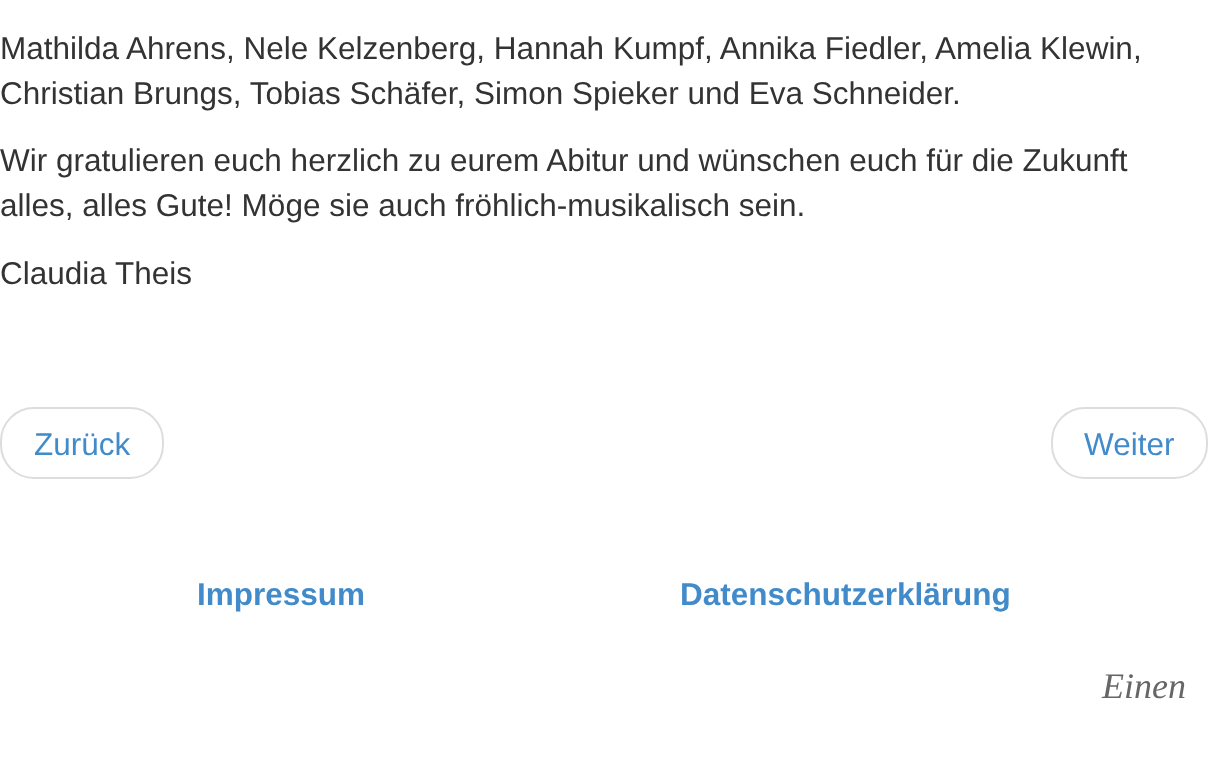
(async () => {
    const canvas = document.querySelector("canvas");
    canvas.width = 1208;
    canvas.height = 781;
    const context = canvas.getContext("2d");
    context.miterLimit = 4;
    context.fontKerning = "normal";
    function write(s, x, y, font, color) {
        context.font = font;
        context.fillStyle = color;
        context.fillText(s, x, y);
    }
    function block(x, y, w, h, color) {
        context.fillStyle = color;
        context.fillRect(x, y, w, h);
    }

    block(0, 0, 1208, 781, "rgb(255, 255, 255)");
    write("Mathilda Ahrens, Nele Kelzenberg, Hannah Kumpf, Annika Fiedler, Amelia Klewin,", 0, 59, "31.5px Liberation Sans", "rgb(51, 51, 51)");
    write("Christian Brungs, Tobias Schäfer, Simon Spieker und Eva Schneider.", 0, 104, "31.5px Liberation Sans", "rgb(51, 51, 51)");
    write("Wir gratulieren euch herzlich zu eurem Abitur und wünschen euch für die Zukunft", 0, 171, "31.5px Liberation Sans", "rgb(51, 51, 51)");
    write("alles, alles Gute! Möge sie auch fröhlich-musikalisch sein.", 0, 216, "31.5px Liberation Sans", "rgb(51, 51, 51)");
    write("Claudia Theis", 0, 284, "31.5px Liberation Sans", "rgb(51, 51, 51)");
    context.beginPath();
    context.roundRect(1, 408, 162, 70, 33);
    context.strokeStyle = "rgb(221, 221, 221)";
    context.lineWidth = 2;
    context.stroke();
    write("Zurück", 34, 455, "31.5px Liberation Sans", "rgb(66, 139, 202)");
    context.beginPath();
    context.roundRect(1052, 408, 155, 70, 33);
    context.stroke();
    write("Weiter", 1084, 455, "31.5px Liberation Sans", "rgb(66, 139, 202)");
    write("Impressum", 197, 605, "bold 31.5px Liberation Sans", "rgb(66, 139, 202)");
    write("Datenschutzerklärung", 680, 605, "bold 31.5px Liberation Sans", "rgb(66, 139, 202)");
    write("Einen", 1102, 698, "italic 36px Liberation Serif", "rgb(102, 102, 102)");
})();
